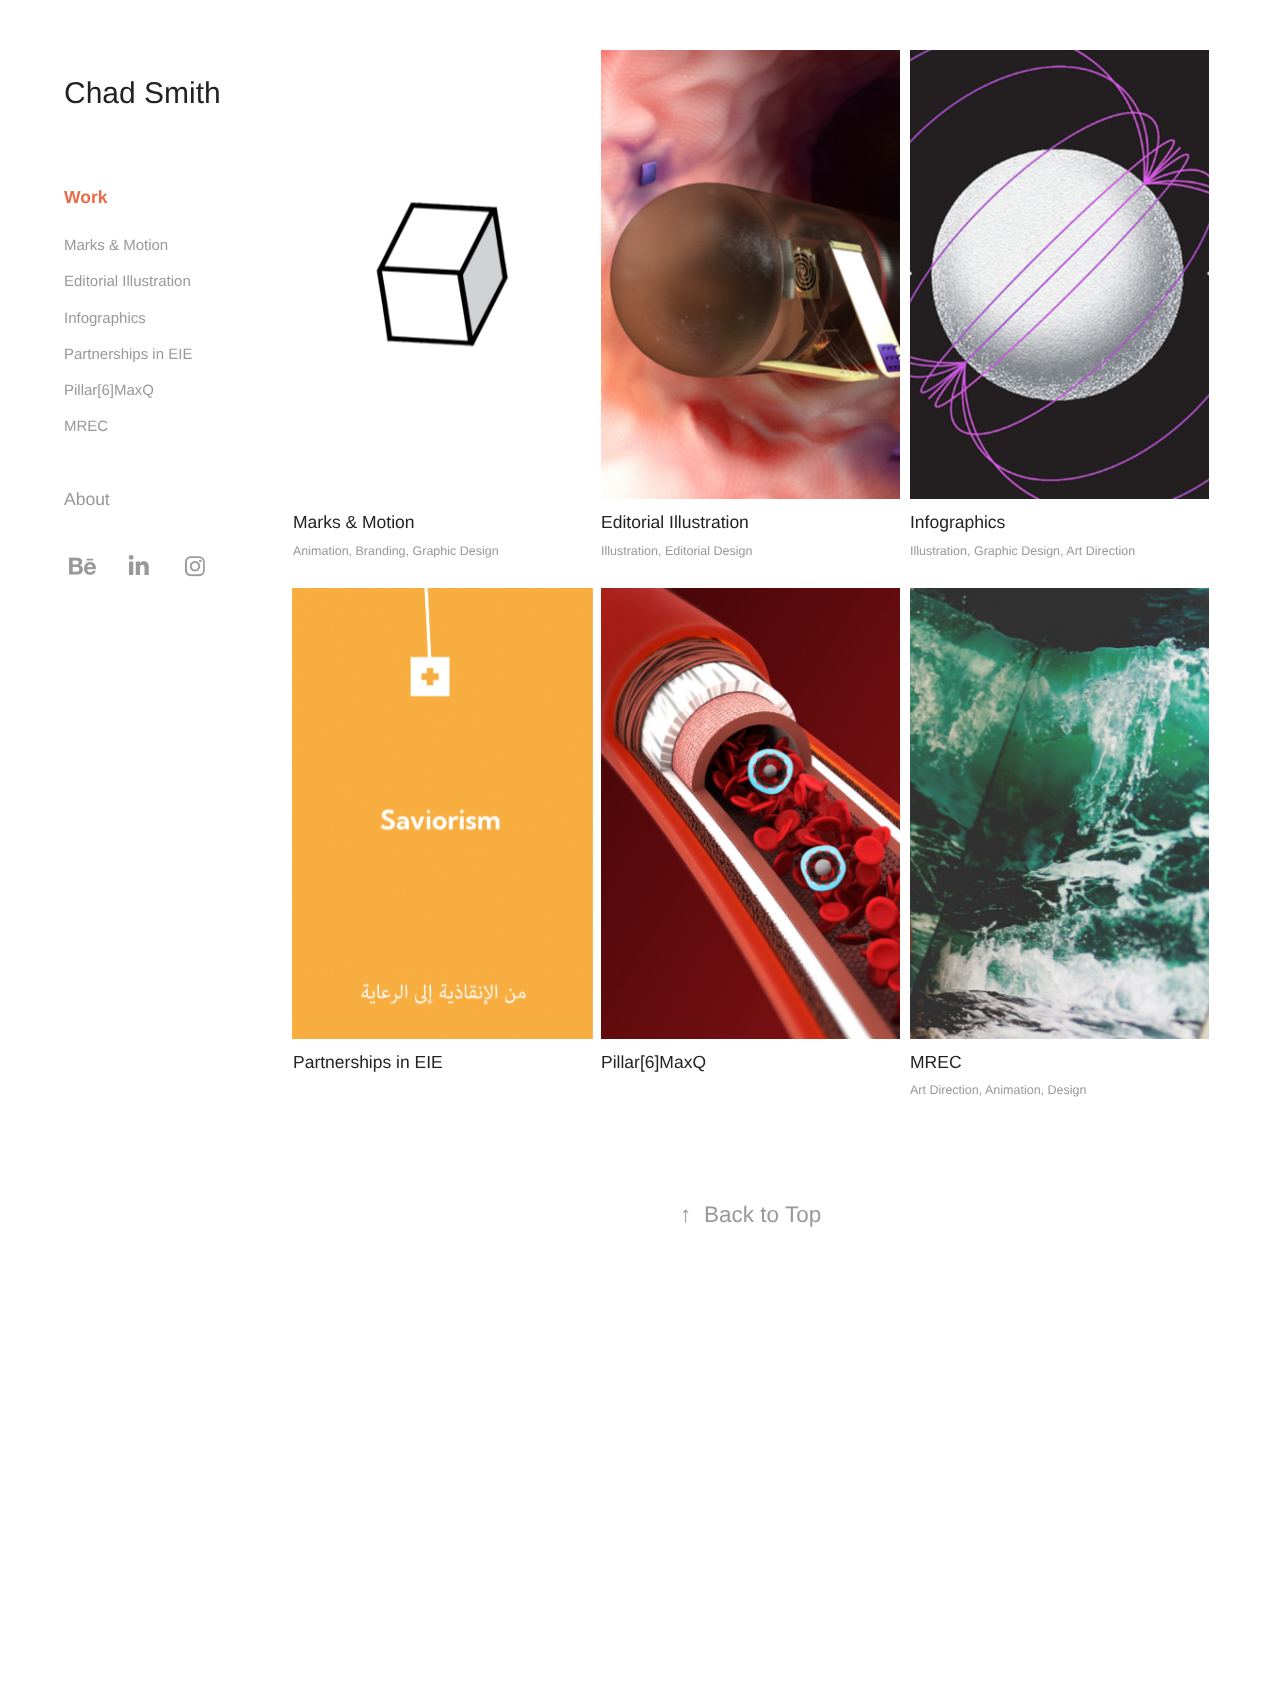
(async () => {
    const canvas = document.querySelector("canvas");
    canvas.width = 1272;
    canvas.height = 1683;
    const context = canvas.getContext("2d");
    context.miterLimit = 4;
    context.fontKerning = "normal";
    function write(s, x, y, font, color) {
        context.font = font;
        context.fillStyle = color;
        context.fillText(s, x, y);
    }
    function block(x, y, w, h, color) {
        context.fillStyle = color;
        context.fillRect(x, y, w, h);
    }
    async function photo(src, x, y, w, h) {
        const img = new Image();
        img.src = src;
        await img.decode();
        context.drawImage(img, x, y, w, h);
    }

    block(0, 0, 1272, 1683, "rgb(255, 255, 255)");
    write("Chad Smith", 64, 103, "30px Liberation Sans", "rgb(34, 34, 34)");
    write("Work", 64, 203, "bold 17.5px Liberation Sans", "rgb(233, 107, 72)");
    write("Marks & Motion", 64, 250, "15px Liberation Sans", "rgb(153, 153, 153)");
    write("Editorial Illustration", 64, 286, "15px Liberation Sans", "rgb(153, 153, 153)");
    write("Infographics", 64, 323, "15px Liberation Sans", "rgb(153, 153, 153)");
    write("Partnerships in EIE", 64, 359, "15px Liberation Sans", "rgb(153, 153, 153)");
    write("Pillar[6]MaxQ", 64, 395, "15px Liberation Sans", "rgb(153, 153, 153)");
    write("MREC", 64, 431, "15px Liberation Sans", "rgb(153, 153, 153)");
    write("About", 64, 505, "17.5px Liberation Sans", "rgb(153, 153, 153)");
    await photo("media/1.png", 69, 557, 27, 18);
    await photo("media/2.png", 128, 555, 21, 20);
    await photo("media/3.png", 185, 556, 20, 21);
    await photo("media/4.png", 376, 201, 133, 146);
    write("Marks & Motion", 293, 528, "17.5px Liberation Sans", "rgb(34, 34, 34)");
    write("Animation, Branding, Graphic Design", 293, 555, "12.5px Liberation Sans", "rgb(153, 153, 153)");
    await photo("media/5.png", 601, 50, 299, 449);
    write("Editorial Illustration", 601, 528, "17.5px Liberation Sans", "rgb(34, 34, 34)");
    write("Illustration, Editorial Design", 601, 555, "12.5px Liberation Sans", "rgb(153, 153, 153)");
    await photo("media/6.png", 910, 50, 299, 449);
    write("Infographics", 910, 528, "17.5px Liberation Sans", "rgb(34, 34, 34)");
    write("Illustration, Graphic Design, Art Direction", 910, 555, "12.5px Liberation Sans", "rgb(153, 153, 153)");
    await photo("media/7.png", 292, 588, 301, 451);
    write("Partnerships in EIE", 293, 1068, "17.5px Liberation Sans", "rgb(34, 34, 34)");
    await photo("media/8.png", 601, 588, 299, 451);
    write("Pillar[6]MaxQ", 601, 1068, "17.5px Liberation Sans", "rgb(34, 34, 34)");
    await photo("media/9.png", 910, 588, 299, 451);
    write("MREC", 910, 1068, "17.5px Liberation Sans", "rgb(34, 34, 34)");
    write("Art Direction, Animation, Design", 910, 1094, "12.5px Liberation Sans", "rgb(153, 153, 153)");
    write("↑", 680, 1222, "22.5px Liberation Sans", "rgb(153, 153, 153)");
    write("Back to Top", 704, 1222, "22.5px Liberation Sans", "rgb(153, 153, 153)");
})();
